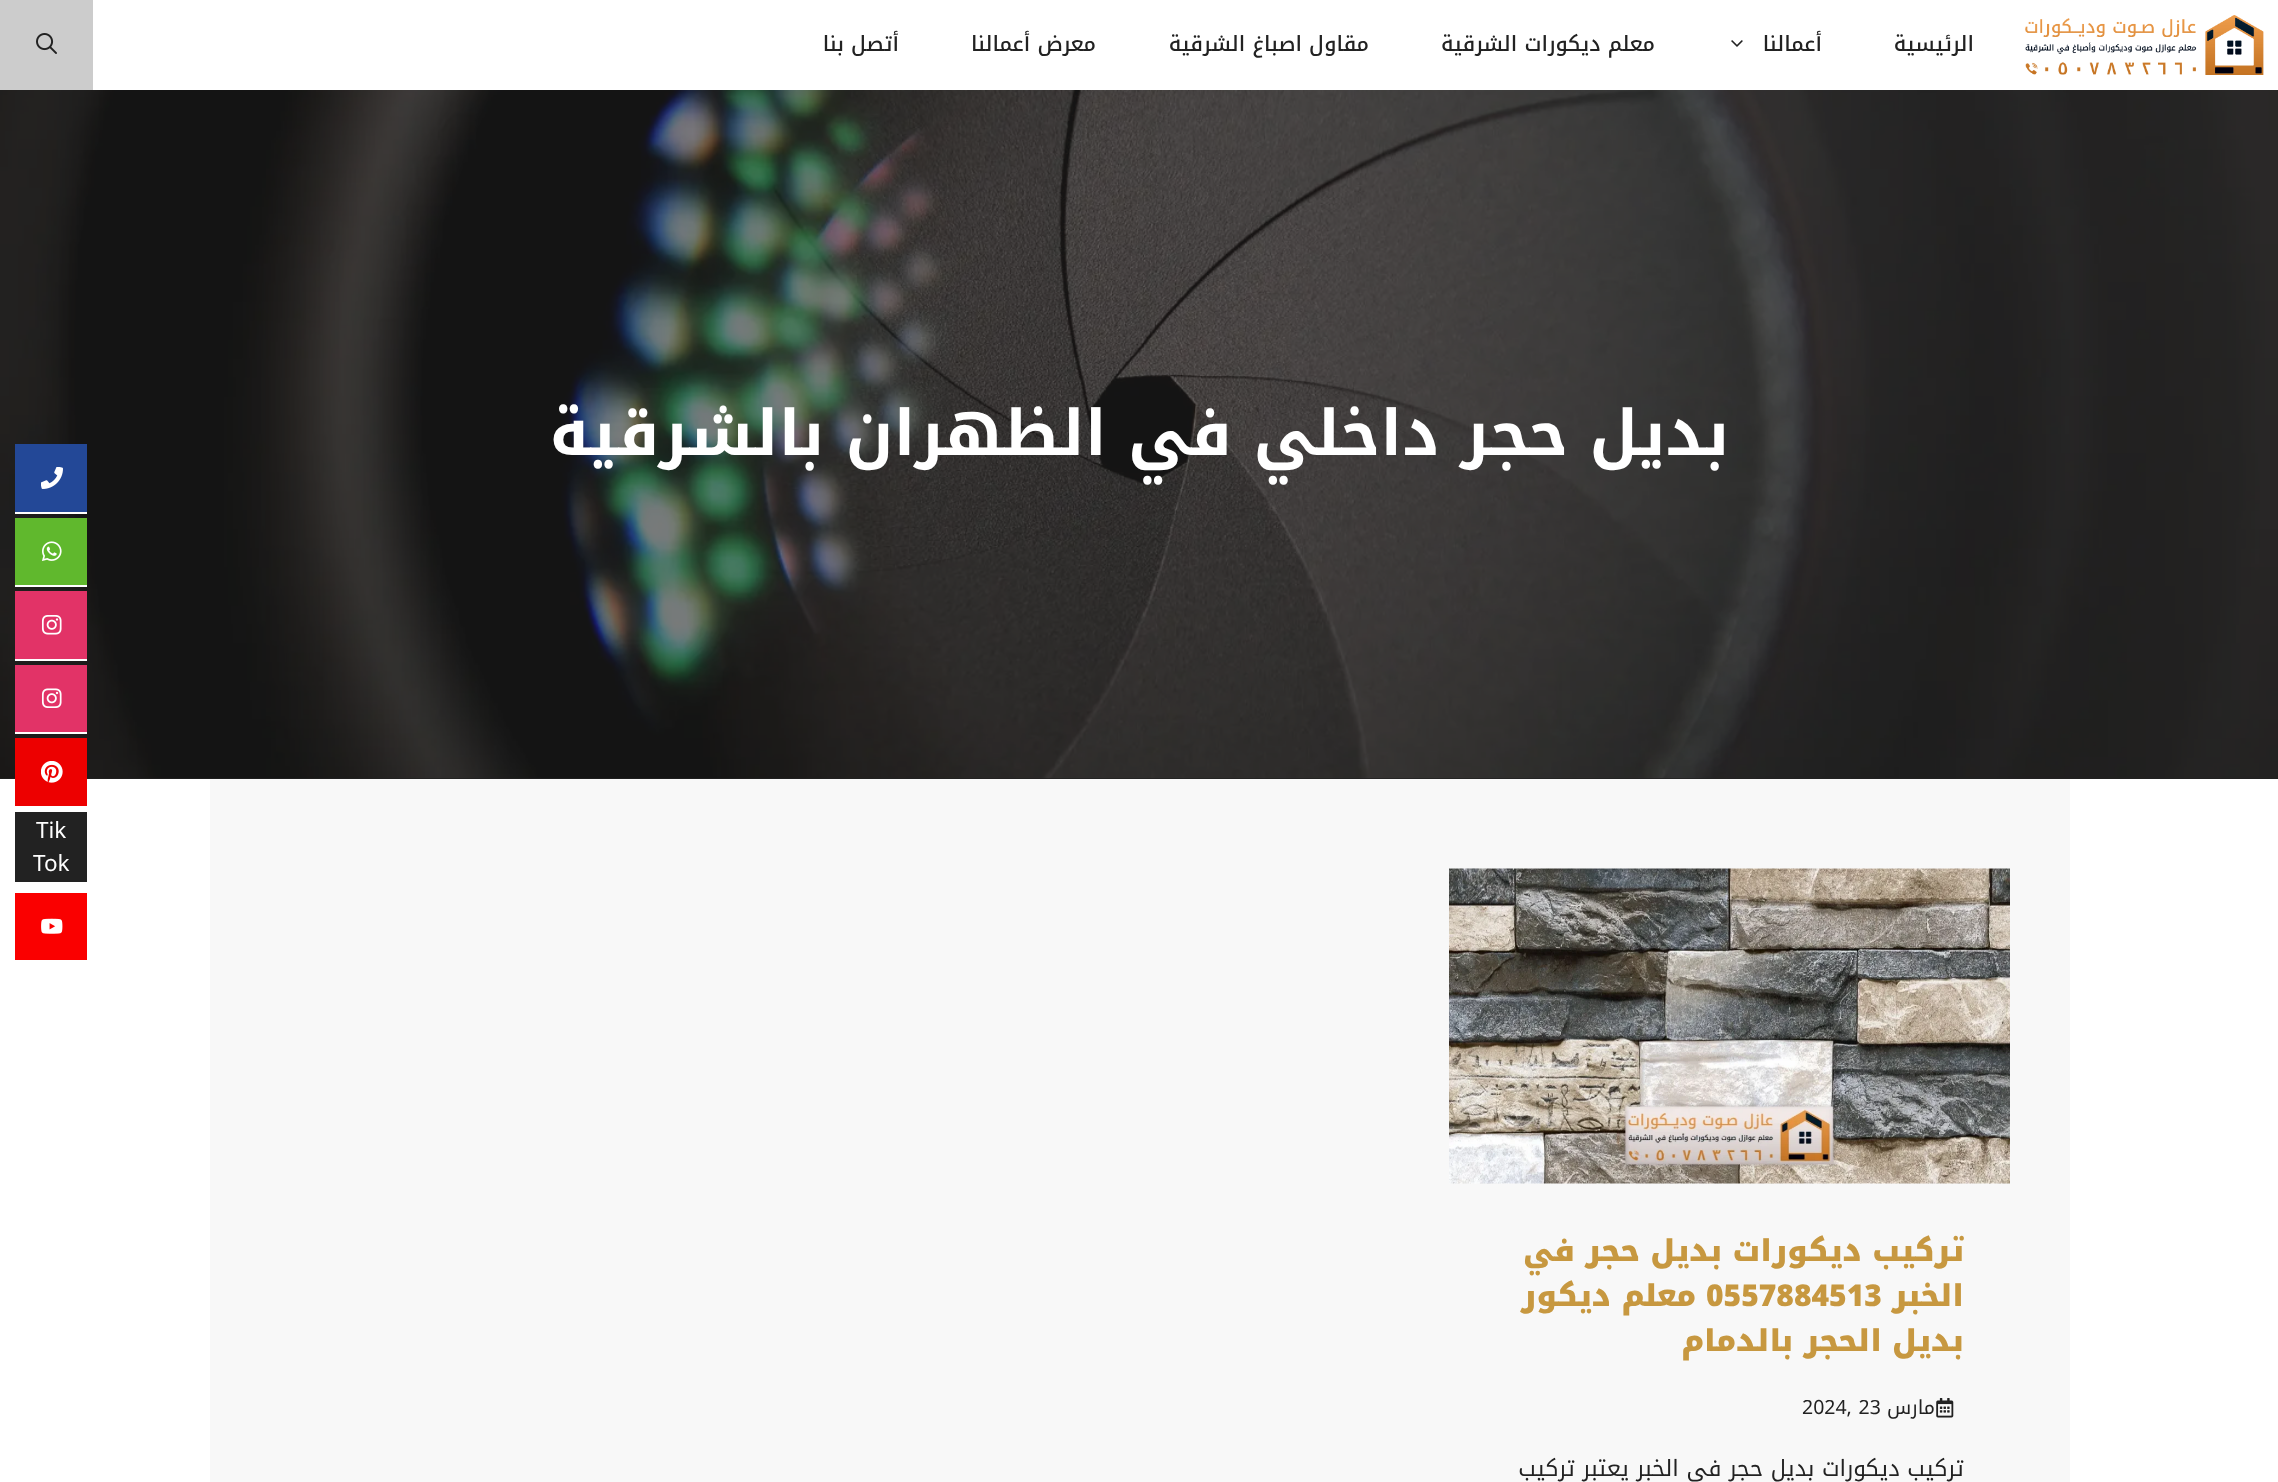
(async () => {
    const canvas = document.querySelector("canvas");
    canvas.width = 2278;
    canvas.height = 1482;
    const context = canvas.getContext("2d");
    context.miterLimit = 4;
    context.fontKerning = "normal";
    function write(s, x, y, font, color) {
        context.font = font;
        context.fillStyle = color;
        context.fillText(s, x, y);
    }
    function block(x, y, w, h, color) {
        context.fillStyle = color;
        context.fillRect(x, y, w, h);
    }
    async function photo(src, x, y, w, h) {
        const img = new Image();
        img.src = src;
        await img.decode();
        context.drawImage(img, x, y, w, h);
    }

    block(0, 0, 2278, 1482, "rgb(255, 255, 255)");
    await photo("media/1.png", 2025, 15, 239, 60);
    context.direction = "rtl";
    write("الرئيسية", 1974, 51, "500 21px Noto Kufi Arabic", "rgb(34, 34, 34)");
    write("أعمالنا", 1822, 51, "500 21px Noto Kufi Arabic", "rgb(34, 34, 34)");
    await photo("media/2.png", 1731, 40, 12, 7);
    write("معلم ديكورات الشرقية", 1655, 51, "500 21px Noto Kufi Arabic", "rgb(34, 34, 34)");
    write("مقاول اصباغ الشرقية", 1369, 51, "500 21px Noto Kufi Arabic", "rgb(34, 34, 34)");
    write("معرض أعمالنا", 1096, 51, "500 21px Noto Kufi Arabic", "rgb(34, 34, 34)");
    write("أتصل بنا", 899, 51, "500 21px Noto Kufi Arabic", "rgb(34, 34, 34)");
    block(0, 0, 93, 90, "rgb(204, 204, 204)");
    await photo("media/3.png", 36, 33, 21, 21);
    block(0, 90, 2278, 689, "rgb(34, 34, 34)");
    await photo("media/4.png", 0, 90, 2278, 689);
    write("بديل حجر داخلي في الظهران بالشرقية", 1729, 455, "bold 63px Noto Kufi Arabic", "rgb(255, 255, 255)");
    block(15, 444, 72, 68, "rgb(35, 72, 151)");
    block(15, 512, 72, 2, "rgb(255, 255, 255)");
    await photo("media/5.png", 41, 467, 22, 22);
    block(15, 518, 72, 67, "rgb(96, 184, 45)");
    block(15, 585, 72, 2, "rgb(255, 255, 255)");
    await photo("media/6.png", 42, 541, 20, 20);
    block(15, 591, 72, 68, "rgb(226, 51, 103)");
    block(15, 659, 72, 2, "rgb(255, 255, 255)");
    await photo("media/7.png", 41, 615, 21, 20);
    block(15, 665, 72, 67, "rgb(226, 51, 103)");
    block(15, 732, 72, 2, "rgb(255, 255, 255)");
    await photo("media/8.png", 41, 688, 21, 20);
    block(15, 738, 72, 68, "rgb(237, 0, 0)");
    await photo("media/9.png", 41, 761, 22, 22);
    block(15, 812, 72, 70, "rgb(34, 34, 34)");
    context.direction = "ltr";
    write("Tik", 36, 838, "22.5px Noto Kufi Arabic", "rgb(255, 255, 255)");
    write("Tok", 33, 871, "22.5px Noto Kufi Arabic", "rgb(255, 255, 255)");
    block(15, 893, 72, 67, "rgb(250, 0, 0)");
    await photo("media/10.png", 41, 918, 22, 16);
    block(210, 779, 1860, 703, "rgb(248, 248, 248)");
    await photo("media/11.png", 1449, 868, 561, 316);
    context.direction = "rtl";
    write("تركيب ديكورات بديل حجر في", 1964, 1261, "900 30px Noto Kufi Arabic", "rgb(199, 152, 64)");
    write("الخبر", 1964, 1306, "900 30px Noto Kufi Arabic", "rgb(199, 152, 64)");
    context.direction = "ltr";
    write("0557884513", 1706, 1306, "900 30px Noto Kufi Arabic", "rgb(199, 152, 64)");
    context.direction = "rtl";
    write("معلم ديكور", 1696, 1306, "900 30px Noto Kufi Arabic", "rgb(199, 152, 64)");
    write("بديل الحجر بالدمام", 1964, 1351, "900 30px Noto Kufi Arabic", "rgb(199, 152, 64)");
    await photo("media/12.png", 1936, 1398, 18, 20);
    write("مارس", 1935, 1414, "19.5px Noto Kufi Arabic", "rgb(34, 34, 34)");
    context.direction = "ltr";
    write("2024, 23", 1802, 1414, "19.5px Noto Kufi Arabic", "rgb(34, 34, 34)");
    context.direction = "rtl";
    write("تركيب ديكورات بديل حجر في الخبر يعتبر تركيب", 1964, 1476, "22.5px Noto Kufi Arabic", "rgb(34, 34, 34)");
})();
